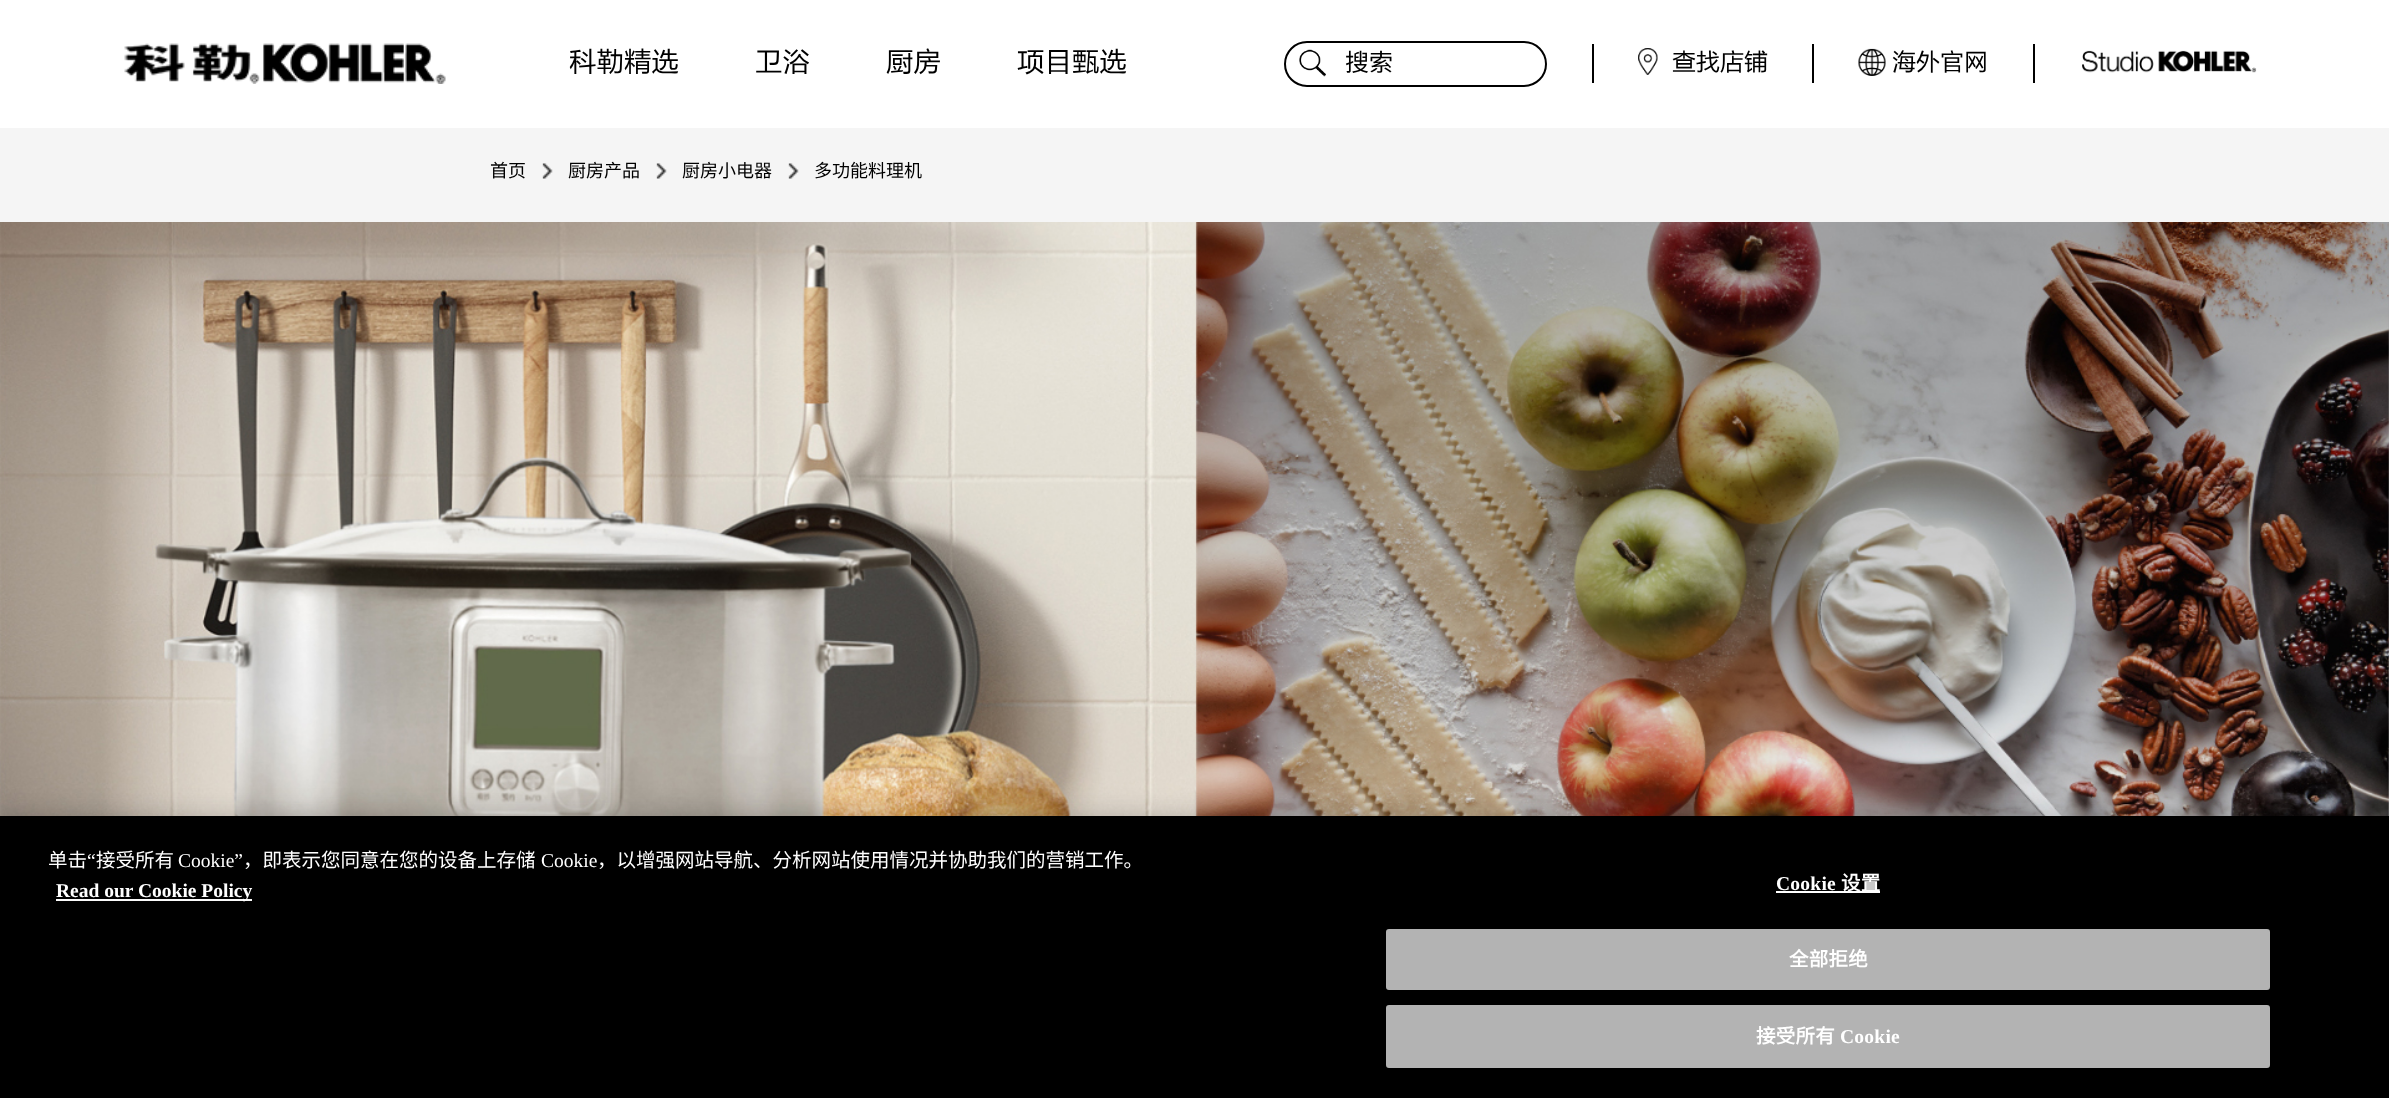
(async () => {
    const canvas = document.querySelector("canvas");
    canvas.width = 2389;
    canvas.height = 1098;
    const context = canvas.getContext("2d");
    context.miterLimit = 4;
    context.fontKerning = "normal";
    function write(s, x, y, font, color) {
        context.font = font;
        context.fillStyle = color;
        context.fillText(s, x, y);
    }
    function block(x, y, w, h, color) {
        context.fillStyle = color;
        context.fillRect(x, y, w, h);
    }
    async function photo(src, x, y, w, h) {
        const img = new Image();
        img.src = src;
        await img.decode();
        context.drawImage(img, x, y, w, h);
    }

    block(0, 0, 2389, 1098, "rgb(255, 255, 255)");
    await photo("media/1.png", 124, 43, 322, 41);
    write("科勒精选", 569, 71, "27.5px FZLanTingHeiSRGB", "rgb(0, 0, 0)");
    write("卫浴", 755, 71, "27.5px FZLanTingHeiSRGB", "rgb(0, 0, 0)");
    write("厨房", 886, 71, "27.5px FZLanTingHeiSRGB", "rgb(0, 0, 0)");
    write("项目甄选", 1017, 71, "27.5px FZLanTingHeiSRGB", "rgb(0, 0, 0)");
    context.beginPath();
    context.roundRect(1285, 42, 261, 44, 22);
    context.strokeStyle = "rgb(0, 0, 0)";
    context.lineWidth = 2;
    context.stroke();
    await photo("media/2.png", 1299, 49, 27, 28);
    write("搜索", 1345, 71, "24px Noto Sans CJK SC", "rgb(0, 0, 0)");
    block(1592, 44, 2, 39, "rgb(0, 0, 0)");
    await photo("media/3.png", 1638, 48, 20, 27);
    write("查找店铺", 1672, 70, "24px FZLanTingHeiSRGB", "rgb(0, 0, 0)");
    block(1812, 44, 2, 39, "rgb(0, 0, 0)");
    await photo("media/4.png", 1858, 48, 28, 28);
    write("海外官网", 1892, 70, "24px FZLanTingHeiSRGB", "rgb(0, 0, 0)");
    block(2033, 44, 2, 39, "rgb(0, 0, 0)");
    await photo("media/5.png", 2082, 50, 175, 23);
    block(0, 128, 2389, 94, "rgb(245, 245, 245)");
    write("首页", 490, 177, "18px Noto Sans CJK SC", "rgb(0, 0, 0)");
    await photo("media/6.png", 542, 163, 11, 16);
    write("厨房产品", 568, 177, "18px Noto Sans CJK SC", "rgb(0, 0, 0)");
    await photo("media/6.png", 656, 163, 11, 16);
    write("厨房小电器", 682, 177, "18px Noto Sans CJK SC", "rgb(0, 0, 0)");
    await photo("media/6.png", 788, 163, 11, 16);
    write("多功能料理机", 814, 177, "18px Noto Sans CJK SC", "rgb(0, 0, 0)");
    await photo("media/7.png", 0, 222, 2389, 594);
    context.fillStyle = "rgba(0, 0, 0, 0.2)";
    context.filter = "blur(13.5px)";
    context.beginPath();
    context.rect(0, 816, 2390, 282);
    context.fill();
    context.filter = "none";
    block(0, 816, 2389, 282, "rgb(0, 0, 0)");
    write("单击", 48, 867, "19.5px Noto Sans CJK SC", "rgb(255, 255, 255)");
    write("“", 87, 867, "19.5px Liberation Serif", "rgb(255, 255, 255)");
    write("接受所有", 96, 867, "19.5px Noto Sans CJK SC", "rgb(255, 255, 255)");
    write("Cookie”", 178, 867, "19.5px Liberation Serif", "rgb(255, 255, 255)");
    write("，即表示您同意在您的设备上存储", 243, 867, "19.5px Noto Sans CJK SC", "rgb(255, 255, 255)");
    write("Cookie", 541, 867, "19.5px Liberation Serif", "rgb(255, 255, 255)");
    write("，以增强网站导航、分析网站使用情况并协助我们的营销工作。", 597, 867, "19.5px Noto Sans CJK SC", "rgb(255, 255, 255)");
    block(56, 899, 196, 2, "rgb(250, 250, 250)");
    write("Read our Cookie Policy", 56, 897, "bold 19.5px Liberation Serif", "rgb(255, 255, 255)");
    context.letterSpacing = "0.25px";
    write("Cookie", 1776, 890, "bold 19.5px Liberation Serif", "rgb(255, 255, 255)");
    block(1776, 891, 104, 2, "rgb(255, 255, 255)");
    write("设置", 1841, 890, "bold 19.5px Noto Sans CJK SC", "rgb(255, 255, 255)");
    context.fillStyle = "rgb(179, 179, 179)";
    context.beginPath();
    context.roundRect(1387, 930, 882, 59, 2);
    context.fill();
    context.strokeStyle = "rgb(179, 179, 179)";
    context.stroke();
    write("全部拒绝", 1789, 966, "bold 19.5px Noto Sans CJK SC", "rgb(255, 255, 255)");
    context.fillStyle = "rgb(179, 179, 179)";
    context.beginPath();
    context.roundRect(1387, 1006, 882, 61, 2);
    context.fill();
    context.stroke();
    write("接受所有", 1756, 1043, "bold 19.5px Noto Sans CJK SC", "rgb(255, 255, 255)");
    write("Cookie", 1840, 1043, "bold 19.5px Liberation Serif", "rgb(255, 255, 255)");
})();
